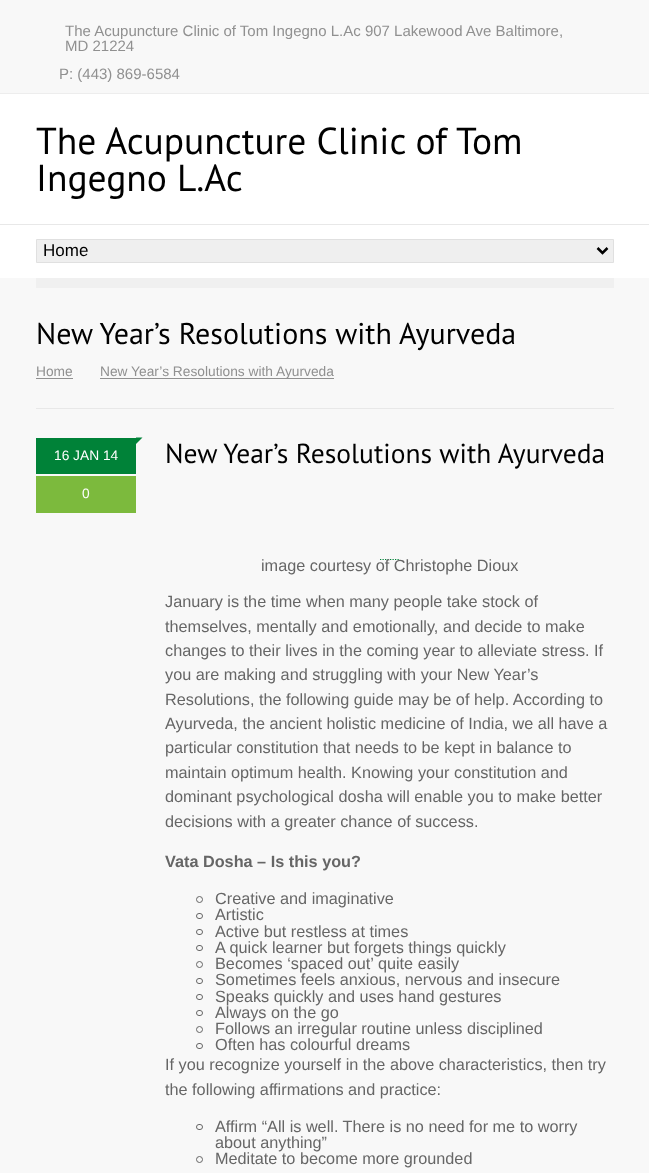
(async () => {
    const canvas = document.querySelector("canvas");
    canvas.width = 649;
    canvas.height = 1173;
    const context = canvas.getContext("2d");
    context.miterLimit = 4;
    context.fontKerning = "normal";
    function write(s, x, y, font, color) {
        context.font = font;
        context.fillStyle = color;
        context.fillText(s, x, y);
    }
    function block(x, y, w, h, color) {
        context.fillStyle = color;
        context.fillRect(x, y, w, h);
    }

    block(0, 0, 649, 1173, "rgb(248, 248, 248)");
    block(0, 93, 649, 1, "rgb(237, 237, 237)");
    write("The Acupuncture Clinic of Tom Ingegno L.Ac 907 Lakewood Ave Baltimore,", 65, 36, "15px Liberation Sans", "rgb(144, 144, 144)");
    write("MD 21224", 65, 51, "15px Liberation Sans", "rgb(144, 144, 144)");
    write("P: (443) 869-6584", 59, 79, "15px Liberation Sans", "rgb(144, 144, 144)");
    block(0, 94, 649, 130, "rgb(255, 255, 255)");
    write("The Acupuncture Clinic of Tom", 36, 154, "37.5px PT Sans", "rgb(0, 0, 0)");
    write("Ingegno L.Ac", 36, 191, "37.5px PT Sans", "rgb(0, 0, 0)");
    block(0, 224, 649, 1, "rgb(232, 232, 232)");
    block(0, 225, 649, 53, "rgb(255, 255, 255)");
    context.fillStyle = "rgb(239, 239, 239)";
    context.beginPath();
    context.rect(36.5, 239.5, 577, 23);
    context.fill();
    context.strokeStyle = "rgb(224, 224, 224)";
    context.stroke();
    context.beginPath();
    context.moveTo(597.5, 248);
    context.lineTo(602.5, 253);
    context.lineTo(607.5, 248);
    context.strokeStyle = "rgb(0, 0, 0)";
    context.lineWidth = 2.5;
    context.stroke();
    write("Home", 43, 256, "17px Liberation Sans", "rgb(0, 0, 0)");
    block(36, 278, 578, 10, "rgb(240, 240, 240)");
    block(36, 408, 578, 1, "rgb(232, 232, 232)");
    write("New Year’s Resolutions with Ayurveda", 36, 344, "30px PT Sans", "rgb(0, 0, 0)");
    write("Home", 36, 376, "13.75px Liberation Sans", "rgb(144, 144, 144)");
    block(36, 378, 37, 1, "rgb(144, 144, 144)");
    block(100, 378, 234, 1, "rgb(144, 144, 144)");
    write("New Year’s Resolutions with Ayurveda", 100, 376, "13.75px Liberation Sans", "rgb(144, 144, 144)");
    context.fillStyle = "rgb(0, 130, 56)";
    context.beginPath();
    context.moveTo(136, 437.5);
    context.lineTo(142.5, 437.5);
    context.lineTo(136, 444);
    context.closePath();
    context.fill();
    block(36, 438, 100, 36, "rgb(0, 130, 56)");
    write("16 JAN 14", 54, 460, "13.75px Liberation Sans", "rgb(255, 255, 255)");
    block(36, 476, 100, 37, "rgb(124, 186, 61)");
    write("0", 82, 498, "13.75px Liberation Sans", "rgb(255, 255, 255)");
    write("New Year’s Resolutions with Ayurveda", 165, 463, "27.5px PT Sans", "rgb(0, 0, 0)");
    context.beginPath();
    context.moveTo(380, 559.5);
    context.lineTo(400, 559.5);
    context.strokeStyle = "rgb(0, 130, 56)";
    context.lineWidth = 1.2;
    context.setLineDash([1.25, 1.25]);
    context.stroke();
    write("image courtesy of Christophe Dioux", 261, 571, "16.25px Liberation Sans", "rgb(102, 102, 102)");
    write("January is the time when many people take stock of", 165, 607, "16.25px Liberation Sans", "rgb(102, 102, 102)");
    write("themselves, mentally and emotionally, and decide to make", 165, 632, "16.25px Liberation Sans", "rgb(102, 102, 102)");
    write("changes to their lives in the coming year to alleviate stress. If", 165, 656, "16.25px Liberation Sans", "rgb(102, 102, 102)");
    write("you are making and struggling with your New Year’s", 165, 680, "16.25px Liberation Sans", "rgb(102, 102, 102)");
    write("Resolutions, the following guide may be of help. According to", 165, 705, "16.25px Liberation Sans", "rgb(102, 102, 102)");
    write("Ayurveda, the ancient holistic medicine of India, we all have a", 165, 729, "16.25px Liberation Sans", "rgb(102, 102, 102)");
    write("particular constitution that needs to be kept in balance to", 165, 753, "16.25px Liberation Sans", "rgb(102, 102, 102)");
    write("maintain optimum health. Knowing your constitution and", 165, 778, "16.25px Liberation Sans", "rgb(102, 102, 102)");
    write("dominant psychological dosha will enable you to make better", 165, 802, "16.25px Liberation Sans", "rgb(102, 102, 102)");
    write("decisions with a greater chance of success.", 165, 827, "16.25px Liberation Sans", "rgb(102, 102, 102)");
    write("Vata Dosha – Is this you?", 165, 867, "bold 16.25px Liberation Sans", "rgb(102, 102, 102)");
    context.beginPath();
    context.arc(199.5, 899.5, 3, 0, Math.PI * 2);
    context.strokeStyle = "rgb(102, 102, 102)";
    context.lineWidth = 1;
    context.setLineDash([]);
    context.stroke();
    write("Creative and imaginative", 215, 904, "16.25px Liberation Sans", "rgb(102, 102, 102)");
    context.beginPath();
    context.roundRect(196.5, 913.5, 6, 5, 2.5);
    context.stroke();
    write("Artistic", 215, 920, "16.25px Liberation Sans", "rgb(102, 102, 102)");
    context.beginPath();
    context.roundRect(196.5, 929.5, 6, 5, 2.5);
    context.stroke();
    write("Active but restless at times", 215, 937, "16.25px Liberation Sans", "rgb(102, 102, 102)");
    context.beginPath();
    context.roundRect(196.5, 945.5, 6, 5, 2.5);
    context.stroke();
    write("A quick learner but forgets things quickly", 215, 953, "16.25px Liberation Sans", "rgb(102, 102, 102)");
    context.beginPath();
    context.arc(199.5, 964.5, 3, 0, Math.PI * 2);
    context.stroke();
    write("Becomes ‘spaced out’ quite easily", 215, 969, "16.25px Liberation Sans", "rgb(102, 102, 102)");
    context.beginPath();
    context.roundRect(196.5, 978.5, 6, 5, 2.5);
    context.stroke();
    write("Sometimes feels anxious, nervous and insecure", 215, 985, "16.25px Liberation Sans", "rgb(102, 102, 102)");
    context.beginPath();
    context.roundRect(196.5, 994.5, 6, 5, 2.5);
    context.stroke();
    write("Speaks quickly and uses hand gestures", 215, 1002, "16.25px Liberation Sans", "rgb(102, 102, 102)");
    context.beginPath();
    context.roundRect(196.5, 1010.5, 6, 5, 2.5);
    context.stroke();
    write("Always on the go", 215, 1018, "16.25px Liberation Sans", "rgb(102, 102, 102)");
    context.beginPath();
    context.arc(199.5, 1029.5, 3, 0, Math.PI * 2);
    context.stroke();
    write("Follows an irregular routine unless disciplined", 215, 1034, "16.25px Liberation Sans", "rgb(102, 102, 102)");
    context.beginPath();
    context.roundRect(196.5, 1043.5, 6, 5, 2.5);
    context.stroke();
    write("Often has colourful dreams", 215, 1050, "16.25px Liberation Sans", "rgb(102, 102, 102)");
    write("If you recognize yourself in the above characteristics, then try", 165, 1070, "16.25px Liberation Sans", "rgb(102, 102, 102)");
    write("the following affirmations and practice:", 165, 1095, "16.25px Liberation Sans", "rgb(102, 102, 102)");
    context.beginPath();
    context.roundRect(196.5, 1124.5, 6, 5, 2.5);
    context.stroke();
    write("Affirm “All is well. There is no need for me to worry", 215, 1132, "16.25px Liberation Sans", "rgb(102, 102, 102)");
    write("about anything”", 215, 1148, "16.25px Liberation Sans", "rgb(102, 102, 102)");
    context.beginPath();
    context.arc(199.5, 1159.5, 3, 0, Math.PI * 2);
    context.stroke();
    write("Meditate to become more grounded", 215, 1164, "16.25px Liberation Sans", "rgb(102, 102, 102)");
})();
